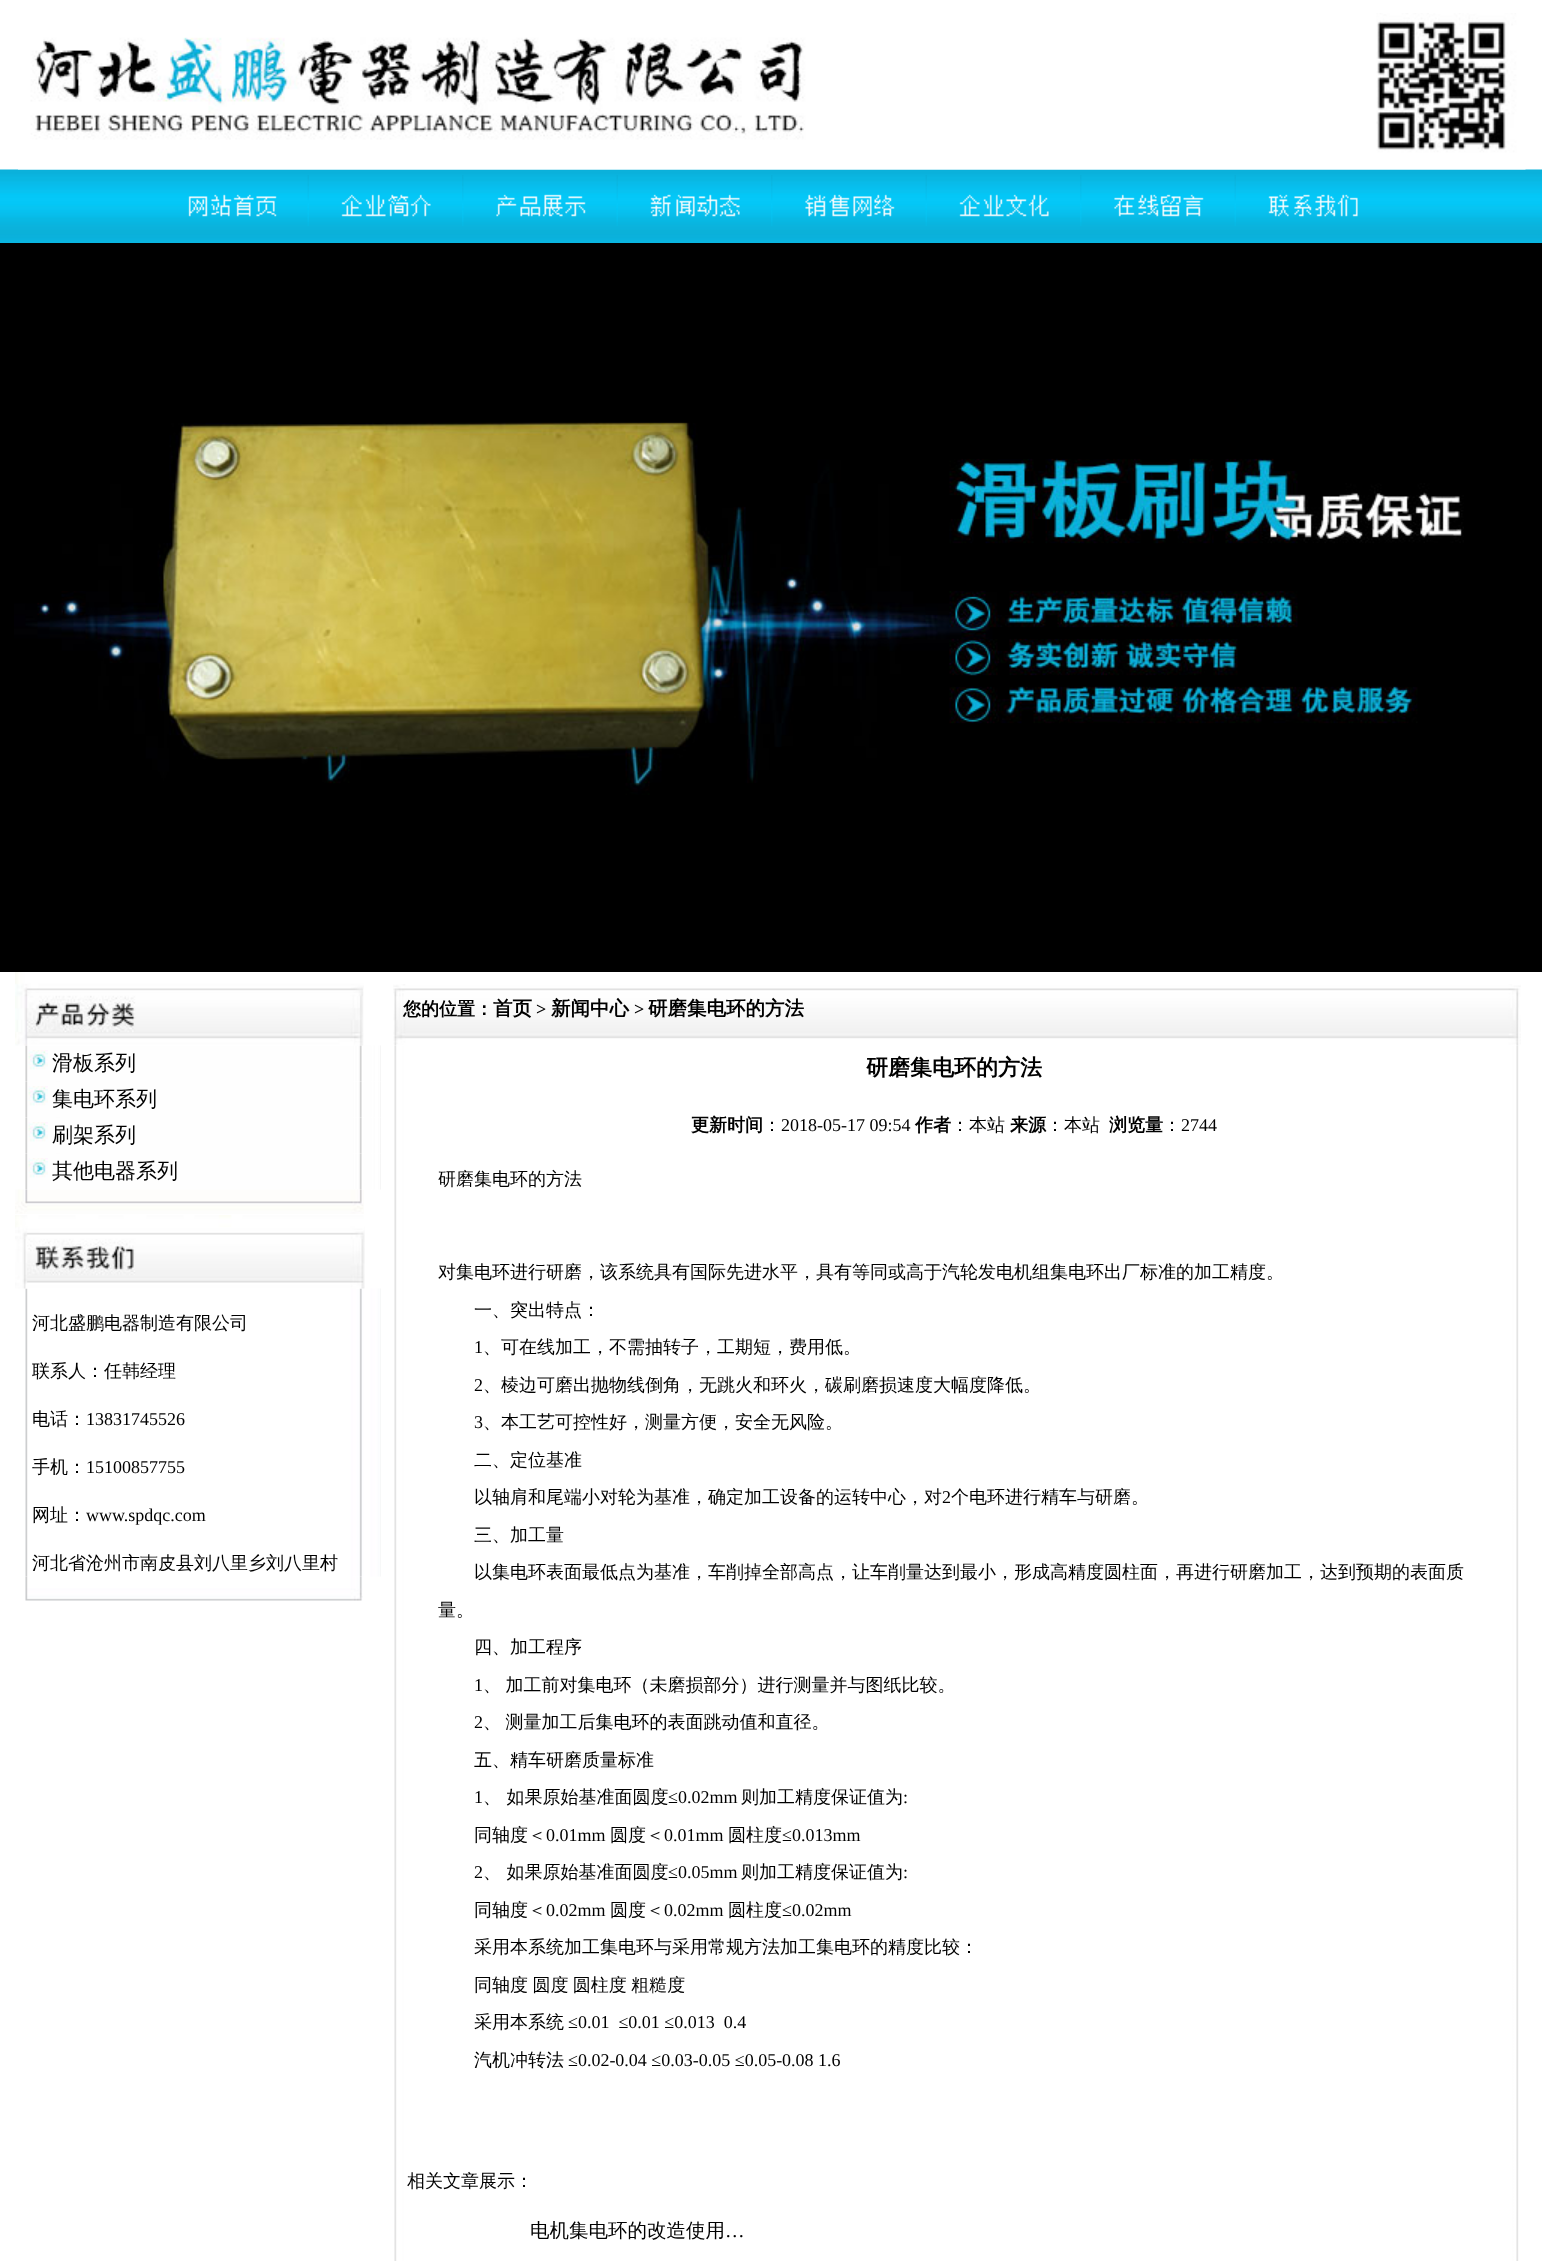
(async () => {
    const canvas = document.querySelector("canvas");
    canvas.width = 1542;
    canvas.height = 2261;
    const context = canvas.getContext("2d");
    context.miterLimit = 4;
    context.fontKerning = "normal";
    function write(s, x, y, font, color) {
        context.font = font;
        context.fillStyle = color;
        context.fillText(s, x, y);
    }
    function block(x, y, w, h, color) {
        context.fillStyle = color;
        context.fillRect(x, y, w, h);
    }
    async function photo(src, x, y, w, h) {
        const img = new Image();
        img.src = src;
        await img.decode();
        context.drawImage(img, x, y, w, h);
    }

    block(0, 0, 1542, 2261, "rgb(255, 255, 255)");
    await photo("media/2.png", 0, 169, 1542, 74);
    await photo("media/1.png", 18, 13, 1508, 157);
    await photo("media/3.png", 188, 194, 89, 23);
    await photo("media/4.png", 307, 175, 2, 51);
    await photo("media/5.png", 341, 194, 90, 23);
    await photo("media/6.png", 462, 175, 2, 51);
    await photo("media/7.png", 496, 194, 90, 23);
    await photo("media/4.png", 616, 175, 2, 51);
    await photo("media/8.png", 650, 194, 90, 23);
    await photo("media/6.png", 771, 175, 2, 51);
    await photo("media/9.png", 805, 194, 90, 23);
    await photo("media/4.png", 925, 175, 2, 51);
    await photo("media/10.png", 959, 194, 90, 23);
    await photo("media/6.png", 1080, 175, 2, 51);
    await photo("media/11.png", 1114, 194, 90, 23);
    await photo("media/4.png", 1234, 175, 2, 51);
    await photo("media/12.png", 1268, 194, 90, 23);
    block(0, 243, 1542, 729, "rgb(0, 0, 0)");
    await photo("media/13.png", 14, 422, 1450, 373);
    await photo("media/15.png", 25, 1045, 356, 37);
    await photo("media/14.png", 15, 972, 349, 74);
    await photo("media/16.png", 28, 1050, 20, 20);
    write("滑板系列", 52, 1070, "500 21px WenQuanYi Zen Hei", "rgb(0, 0, 0)");
    await photo("media/17.png", 25, 1081, 356, 37);
    await photo("media/16.png", 28, 1086, 20, 20);
    write("集电环系列", 52, 1106, "500 21px WenQuanYi Zen Hei", "rgb(0, 0, 0)");
    await photo("media/17.png", 25, 1117, 356, 37);
    await photo("media/16.png", 28, 1122, 20, 20);
    write("刷架系列", 52, 1142, "500 21px WenQuanYi Zen Hei", "rgb(0, 0, 0)");
    await photo("media/17.png", 25, 1153, 356, 37);
    await photo("media/16.png", 28, 1158, 20, 20);
    write("其他电器系列", 52, 1178, "500 21px WenQuanYi Zen Hei", "rgb(0, 0, 0)");
    await photo("media/18.png", 15, 1189, 349, 25);
    await photo("media/20.png", 25, 1288, 356, 289);
    await photo("media/19.png", 15, 1215, 350, 74);
    write("河北盛鹏电器制造有限公司", 32, 1329, "500 18px WenQuanYi Zen Hei", "rgb(0, 0, 0)");
    write("联系人：任韩经理", 32, 1377, "500 18px WenQuanYi Zen Hei", "rgb(0, 0, 0)");
    write("电话：", 32, 1425, "500 18px WenQuanYi Zen Hei", "rgb(0, 0, 0)");
    write("13831745526", 86, 1425, "18px Liberation Serif", "rgb(0, 0, 0)");
    write("手机：", 32, 1473, "500 18px WenQuanYi Zen Hei", "rgb(0, 0, 0)");
    write("15100857755", 86, 1473, "18px Liberation Serif", "rgb(0, 0, 0)");
    write("网址：", 32, 1521, "500 18px WenQuanYi Zen Hei", "rgb(0, 0, 0)");
    write("www.spdqc.com", 86, 1521, "18px Liberation Serif", "rgb(0, 0, 0)");
    write("河北省沧州市南皮县刘八里乡刘八里村", 32, 1569, "500 18px WenQuanYi Zen Hei", "rgb(0, 0, 0)");
    await photo("media/21.png", 25, 1576, 338, 25);
    await photo("media/22.png", 393, 984, 1128, 62);
    write("您的位置：", 403, 1015, "bold 18px WenQuanYi Zen Hei", "rgb(0, 0, 0)");
    write("首页", 493, 1015, "bold 19.5px WenQuanYi Zen Hei", "rgb(0, 0, 0)");
    write(">", 536, 1015, "bold 18px Liberation Serif", "rgb(0, 0, 0)");
    write("新闻中心", 551, 1015, "bold 19.5px WenQuanYi Zen Hei", "rgb(0, 0, 0)");
    write(">", 634, 1015, "bold 18px Liberation Serif", "rgb(0, 0, 0)");
    write("研磨集电环的方法", 648, 1015, "bold 19.5px WenQuanYi Zen Hei", "rgb(0, 0, 0)");
    await photo("media/23.png", 394, 1045, 1125, 1216);
    write("研磨集电环的方法", 866, 1075, "bold 22px WenQuanYi Zen Hei", "rgb(0, 0, 0)");
    write("更新时间", 691, 1131, "bold 18px WenQuanYi Zen Hei", "rgb(0, 0, 0)");
    write("：", 763, 1131, "500 18px WenQuanYi Zen Hei", "rgb(0, 0, 0)");
    write("2018-05-17 09:54", 781, 1131, "18px Liberation Serif", "rgb(0, 0, 0)");
    write("作者", 915, 1131, "bold 18px WenQuanYi Zen Hei", "rgb(0, 0, 0)");
    write("：本站", 951, 1131, "500 18px WenQuanYi Zen Hei", "rgb(0, 0, 0)");
    write("来源", 1010, 1131, "bold 18px WenQuanYi Zen Hei", "rgb(0, 0, 0)");
    write("：本站", 1046, 1131, "500 18px WenQuanYi Zen Hei", "rgb(0, 0, 0)");
    write("浏览量", 1109, 1131, "bold 18px WenQuanYi Zen Hei", "rgb(0, 0, 0)");
    write("：", 1163, 1131, "500 18px WenQuanYi Zen Hei", "rgb(0, 0, 0)");
    write("2744", 1181, 1131, "18px Liberation Serif", "rgb(0, 0, 0)");
    write("研磨集电环的方法", 438, 1185, "500 18px WenQuanYi Zen Hei", "rgb(0, 0, 0)");
    write("对集电环进行研磨，该系统具有国际先进水平，具有等同或高于汽轮发电机组集电环出厂标准的加工精度。", 438, 1278, "500 18px WenQuanYi Zen Hei", "rgb(0, 0, 0)");
    write("一、突出特点：", 474, 1316, "500 18px WenQuanYi Zen Hei", "rgb(0, 0, 0)");
    write("1", 474, 1353, "18px Liberation Serif", "rgb(0, 0, 0)");
    write("、可在线加工，不需抽转子，工期短，费用低。", 483, 1353, "500 18px WenQuanYi Zen Hei", "rgb(0, 0, 0)");
    write("2", 474, 1391, "18px Liberation Serif", "rgb(0, 0, 0)");
    write("、棱边可磨出抛物线倒角，无跳火和环火，碳刷磨损速度大幅度降低。", 483, 1391, "500 18px WenQuanYi Zen Hei", "rgb(0, 0, 0)");
    write("3", 474, 1428, "18px Liberation Serif", "rgb(0, 0, 0)");
    write("、本工艺可控性好，测量方便，安全无风险。", 483, 1428, "500 18px WenQuanYi Zen Hei", "rgb(0, 0, 0)");
    write("二、定位基准", 474, 1466, "500 18px WenQuanYi Zen Hei", "rgb(0, 0, 0)");
    write("以轴肩和尾端小对轮为基准，确定加工设备的运转中心，对", 474, 1503, "500 18px WenQuanYi Zen Hei", "rgb(0, 0, 0)");
    write("2", 942, 1503, "18px Liberation Serif", "rgb(0, 0, 0)");
    write("个电环进行精车与研磨。", 951, 1503, "500 18px WenQuanYi Zen Hei", "rgb(0, 0, 0)");
    write("三、加工量", 474, 1541, "500 18px WenQuanYi Zen Hei", "rgb(0, 0, 0)");
    write("以集电环表面最低点为基准，车削掉全部高点，让车削量达到最小，形成高精度圆柱面，再进行研磨加工，达到预期的表面质", 474, 1578, "500 18px WenQuanYi Zen Hei", "rgb(0, 0, 0)");
    write("量。", 438, 1616, "500 18px WenQuanYi Zen Hei", "rgb(0, 0, 0)");
    write("四、加工程序", 474, 1653, "500 18px WenQuanYi Zen Hei", "rgb(0, 0, 0)");
    write("1", 474, 1691, "18px Liberation Serif", "rgb(0, 0, 0)");
    context.wordSpacing = "-1px";
    write("、 加工前对集电环（未磨损部分）进行测量并与图纸比较。", 483, 1691, "500 18px WenQuanYi Zen Hei", "rgb(0, 0, 0)");
    context.wordSpacing = "0px";
    write("2", 474, 1728, "18px Liberation Serif", "rgb(0, 0, 0)");
    context.wordSpacing = "-1px";
    write("、 测量加工后集电环的表面跳动值和直径。", 483, 1728, "500 18px WenQuanYi Zen Hei", "rgb(0, 0, 0)");
    context.wordSpacing = "0px";
    write("五、精车研磨质量标准", 474, 1766, "500 18px WenQuanYi Zen Hei", "rgb(0, 0, 0)");
    write("1", 474, 1803, "18px Liberation Serif", "rgb(0, 0, 0)");
    write("、 如果原始基准面圆度", 483, 1803, "500 18px WenQuanYi Zen Hei", "rgb(0, 0, 0)");
    write("≤0.02mm", 668, 1803, "18px Liberation Serif", "rgb(0, 0, 0)");
    write("则加工精度保证值为", 741, 1803, "500 18px WenQuanYi Zen Hei", "rgb(0, 0, 0)");
    write(":", 903, 1803, "18px Liberation Serif", "rgb(0, 0, 0)");
    write("同轴度＜", 474, 1841, "500 18px WenQuanYi Zen Hei", "rgb(0, 0, 0)");
    write("0.01mm", 546, 1841, "18px Liberation Serif", "rgb(0, 0, 0)");
    write("圆度＜", 610, 1841, "500 18px WenQuanYi Zen Hei", "rgb(0, 0, 0)");
    write("0.01mm", 664, 1841, "18px Liberation Serif", "rgb(0, 0, 0)");
    write("圆柱度", 728, 1841, "500 18px WenQuanYi Zen Hei", "rgb(0, 0, 0)");
    write("≤0.013mm", 782, 1841, "18px Liberation Serif", "rgb(0, 0, 0)");
    write("2", 474, 1878, "18px Liberation Serif", "rgb(0, 0, 0)");
    write("、 如果原始基准面圆度", 483, 1878, "500 18px WenQuanYi Zen Hei", "rgb(0, 0, 0)");
    write("≤0.05mm", 668, 1878, "18px Liberation Serif", "rgb(0, 0, 0)");
    write("则加工精度保证值为", 741, 1878, "500 18px WenQuanYi Zen Hei", "rgb(0, 0, 0)");
    write(":", 903, 1878, "18px Liberation Serif", "rgb(0, 0, 0)");
    write("同轴度＜", 474, 1916, "500 18px WenQuanYi Zen Hei", "rgb(0, 0, 0)");
    write("0.02mm", 546, 1916, "18px Liberation Serif", "rgb(0, 0, 0)");
    write("圆度＜", 610, 1916, "500 18px WenQuanYi Zen Hei", "rgb(0, 0, 0)");
    write("0.02mm", 664, 1916, "18px Liberation Serif", "rgb(0, 0, 0)");
    write("圆柱度", 728, 1916, "500 18px WenQuanYi Zen Hei", "rgb(0, 0, 0)");
    write("≤0.02mm", 782, 1916, "18px Liberation Serif", "rgb(0, 0, 0)");
    write("采用本系统加工集电环与采用常规方法加工集电环的精度比较：", 474, 1953, "500 18px WenQuanYi Zen Hei", "rgb(0, 0, 0)");
    context.wordSpacing = "-1px";
    write("同轴度 圆度 圆柱度 粗糙度", 474, 1991, "500 18px WenQuanYi Zen Hei", "rgb(0, 0, 0)");
    context.wordSpacing = "0px";
    write("采用本系统", 474, 2028, "500 18px WenQuanYi Zen Hei", "rgb(0, 0, 0)");
    write("≤0.01  ≤0.01 ≤0.013  0.4", 568, 2028, "18px Liberation Serif", "rgb(0, 0, 0)");
    write("汽机冲转法", 474, 2066, "500 18px WenQuanYi Zen Hei", "rgb(0, 0, 0)");
    write("≤0.02-0.04 ≤0.03-0.05 ≤0.05-0.08 1.6", 568, 2066, "18px Liberation Serif", "rgb(0, 0, 0)");
    write("相关文章展示：", 407, 2187, "500 18px WenQuanYi Zen Hei", "rgb(0, 0, 0)");
    write("电机集电环的改造使用", 530, 2237, "500 19.5px WenQuanYi Zen Hei", "rgb(0, 0, 0)");
    write("…", 725, 2237, "19.5px Liberation Serif", "rgb(0, 0, 0)");
})();
